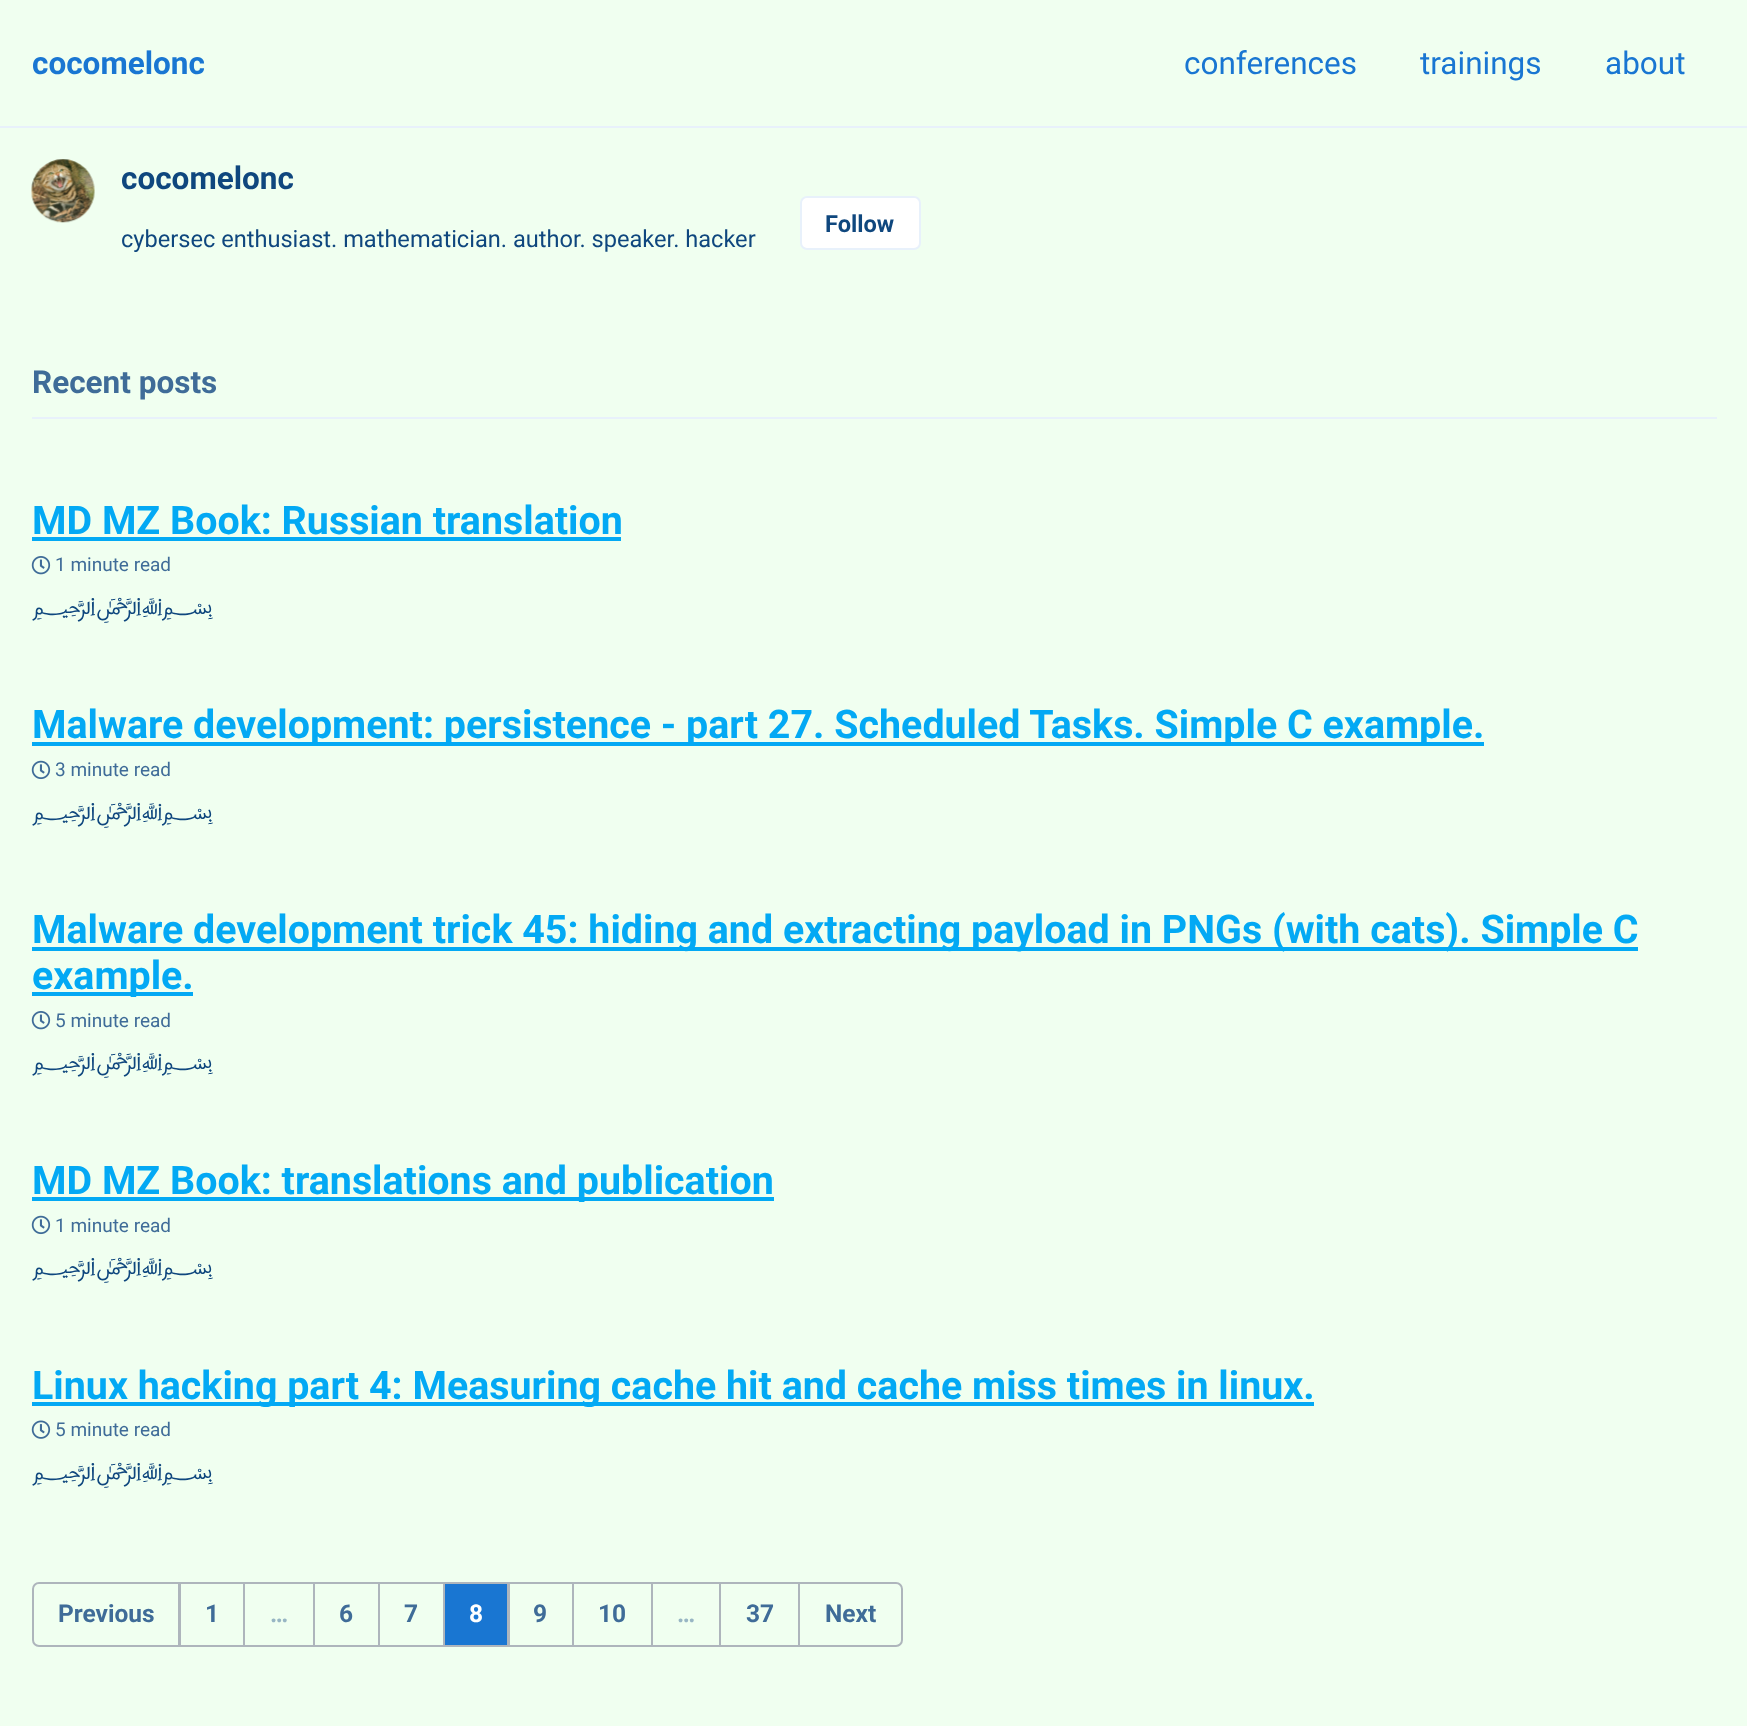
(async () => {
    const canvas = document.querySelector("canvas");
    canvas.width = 1747;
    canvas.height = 1726;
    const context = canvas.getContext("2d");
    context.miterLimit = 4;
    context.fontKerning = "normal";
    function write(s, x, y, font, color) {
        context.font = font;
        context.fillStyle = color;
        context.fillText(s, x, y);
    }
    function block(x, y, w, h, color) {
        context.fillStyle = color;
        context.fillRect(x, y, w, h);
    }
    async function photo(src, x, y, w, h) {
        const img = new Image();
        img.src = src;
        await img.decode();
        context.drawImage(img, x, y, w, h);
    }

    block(0, 0, 1747, 1726, "rgb(240, 255, 240)");
    block(0, 126, 1747, 2, "rgb(232, 241, 251)");
    write("cocomelonc", 32, 74, "bold 31.5px Roboto", "rgb(25, 118, 210)");
    write("conferences", 1184, 74, "31.5px Roboto", "rgb(25, 118, 210)");
    write("trainings", 1420, 74, "31.5px Roboto", "rgb(25, 118, 210)");
    write("about", 1605, 74, "31.5px Roboto", "rgb(25, 118, 210)");
    await photo("media/1.png", 31, 159, 64, 64);
    write("cocomelonc", 121, 189, "bold 31.5px Roboto", "rgb(15, 71, 126)");
    write("cybersec enthusiast. mathematician. author. speaker. hacker", 121, 247, "23.6px Roboto", "rgb(15, 71, 126)");
    context.fillStyle = "rgb(255, 255, 255)";
    context.beginPath();
    context.roundRect(801, 197, 119, 52, 6);
    context.fill();
    context.strokeStyle = "rgb(232, 241, 251)";
    context.lineWidth = 2;
    context.stroke();
    write("Follow", 825, 232, "bold 23.6px Roboto", "rgb(15, 71, 126)");
    block(32, 417, 1685, 2, "rgb(232, 241, 251)");
    write("Recent posts", 32, 393, "bold 31.5px Roboto", "rgb(63, 108, 152)");
    write("MD MZ Book: Russian translation", 32, 534, "bold 39.4px Roboto", "rgb(3, 169, 244)");
    block(32, 537, 589, 4, "rgb(3, 169, 244)");
    await photo("media/2.png", 31, 556, 20, 19);
    write("1 minute read", 55, 571, "19px Roboto", "rgb(63, 108, 152)");
    write("﷽", 32, 614, "23.6px Harmattan", "rgb(15, 71, 126)");
    block(32, 742, 1452, 4, "rgb(3, 169, 244)");
    write("Malware development: persistence - part 27. Scheduled Tasks. Simple C example.", 32, 738, "bold 39.4px Roboto", "rgb(3, 169, 244)");
    await photo("media/3.png", 31, 760, 20, 20);
    write("3 minute read", 55, 776, "19px Roboto", "rgb(63, 108, 152)");
    write("﷽", 32, 819, "23.6px Harmattan", "rgb(15, 71, 126)");
    block(32, 947, 1606, 4, "rgb(3, 169, 244)");
    write("Malware development trick 45: hiding and extracting payload in PNGs (with cats). Simple C", 32, 943, "bold 39.4px Roboto", "rgb(3, 169, 244)");
    block(32, 992, 161, 4, "rgb(3, 169, 244)");
    write("example.", 32, 989, "bold 39.4px Roboto", "rgb(3, 169, 244)");
    await photo("media/2.png", 31, 1011, 20, 19);
    write("5 minute read", 55, 1027, "19px Roboto", "rgb(63, 108, 152)");
    write("﷽", 32, 1069, "23.6px Harmattan", "rgb(15, 71, 126)");
    block(32, 1197, 742, 4, "rgb(3, 169, 244)");
    write("MD MZ Book: translations and publication", 32, 1194, "bold 39.4px Roboto", "rgb(3, 169, 244)");
    await photo("media/3.png", 31, 1215, 20, 20);
    write("1 minute read", 55, 1232, "19px Roboto", "rgb(63, 108, 152)");
    write("﷽", 32, 1274, "23.6px Harmattan", "rgb(15, 71, 126)");
    block(32, 1402, 1282, 4, "rgb(3, 169, 244)");
    context.save();
    context.beginPath();
    context.rect(32, 1362, 1685, 45);
    context.clip();
    write("Linux hacking part 4: Measuring cache hit and cache miss times in linux.", 32, 1399, "bold 39.4px Roboto", "rgb(3, 169, 244)");
    context.restore();
    await photo("media/4.png", 31, 1420, 20, 19);
    write("5 minute read", 55, 1436, "19px Roboto", "rgb(63, 108, 152)");
    write("﷽", 32, 1479, "23.6px Harmattan", "rgb(15, 71, 126)");
    context.beginPath();
    context.roundRect(33, 1583, 146, 63, [6, 0, 0, 6]);
    context.strokeStyle = "rgb(174, 181, 188)";
    context.stroke();
    write("Previous", 58, 1622, "bold 24.5px Roboto", "rgb(63, 108, 152)");
    context.strokeRect(180, 1583, 64, 63);
    write("1", 205, 1622, "bold 24.5px Roboto", "rgb(63, 108, 152)");
    context.strokeRect(244, 1583, 70, 63);
    write("…", 270, 1622, "bold 24.5px Roboto", "rgb(152, 182, 196)");
    context.strokeRect(314, 1583, 65, 63);
    write("6", 339, 1622, "bold 24.5px Roboto", "rgb(63, 108, 152)");
    context.strokeRect(379, 1583, 65, 63);
    write("7", 404, 1622, "bold 24.5px Roboto", "rgb(63, 108, 152)");
    context.fillStyle = "rgb(25, 118, 210)";
    context.beginPath();
    context.rect(444, 1583, 64, 63);
    context.fill();
    context.stroke();
    write("8", 469, 1622, "bold 24.5px Roboto", "rgb(255, 255, 255)");
    context.strokeRect(509, 1583, 64, 63);
    write("9", 533, 1622, "bold 24.5px Roboto", "rgb(63, 108, 152)");
    context.strokeRect(573, 1583, 79, 63);
    write("10", 598, 1622, "bold 24.5px Roboto", "rgb(63, 108, 152)");
    context.strokeRect(652, 1583, 68, 63);
    write("…", 677, 1622, "bold 24.5px Roboto", "rgb(152, 182, 196)");
    context.strokeRect(720, 1583, 79, 63);
    write("37", 746, 1622, "bold 24.5px Roboto", "rgb(63, 108, 152)");
    context.beginPath();
    context.roundRect(799, 1583, 103, 63, [0, 6, 6, 0]);
    context.stroke();
    write("Next", 825, 1622, "bold 24.5px Roboto", "rgb(63, 108, 152)");
})();
